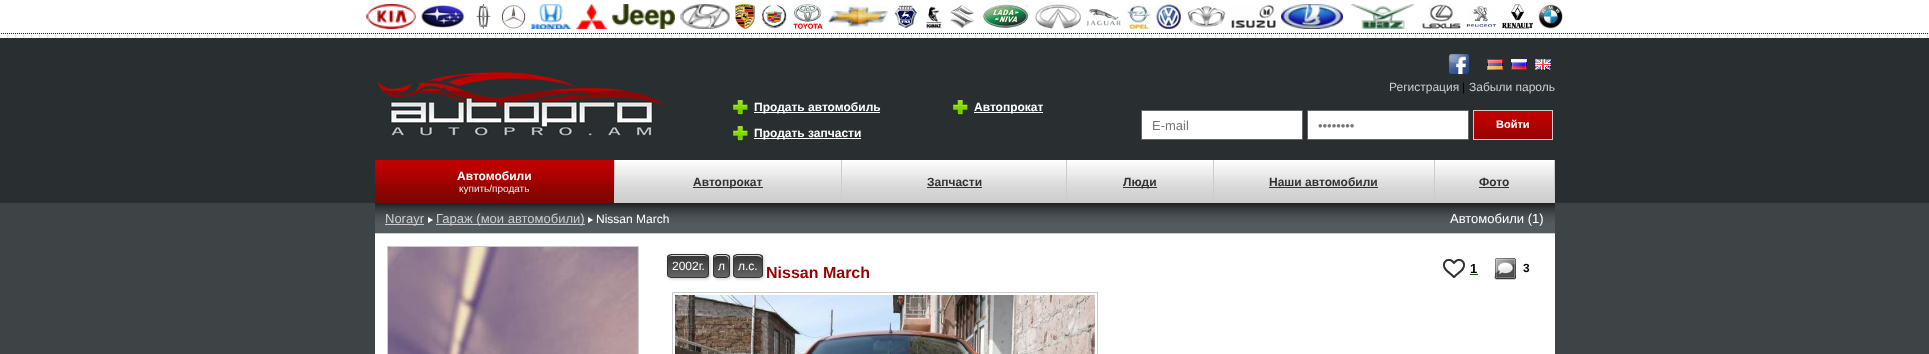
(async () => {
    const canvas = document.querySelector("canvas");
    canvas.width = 1929;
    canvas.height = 354;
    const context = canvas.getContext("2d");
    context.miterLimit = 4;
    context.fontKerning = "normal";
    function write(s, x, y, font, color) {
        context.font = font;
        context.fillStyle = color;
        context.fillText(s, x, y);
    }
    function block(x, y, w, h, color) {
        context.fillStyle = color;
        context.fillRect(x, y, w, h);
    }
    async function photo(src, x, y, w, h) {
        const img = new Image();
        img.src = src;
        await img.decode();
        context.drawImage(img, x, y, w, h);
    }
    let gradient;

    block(0, 0, 1929, 354, "rgb(62, 68, 70)");
    block(0, 0, 1929, 33, "rgb(255, 255, 255)");
    await photo("media/1.png", 366, 4, 50, 25);
    await photo("media/2.png", 421, 5, 44, 23);
    await photo("media/3.png", 476, 4, 15, 25);
    await photo("media/4.png", 501, 4, 25, 25);
    await photo("media/5.png", 531, 4, 40, 25);
    await photo("media/6.png", 576, 4, 31, 25);
    await photo("media/7.png", 612, 4, 63, 25);
    await photo("media/8.png", 680, 4, 50, 25);
    await photo("media/9.png", 735, 4, 20, 25);
    await photo("media/10.png", 761, 4, 26, 25);
    await photo("media/11.png", 793, 4, 30, 25);
    await photo("media/12.png", 828, 4, 60, 25);
    await photo("media/13.png", 894, 5, 23, 24);
    await photo("media/14.png", 926, 6, 16, 23);
    await photo("media/15.png", 950, 5, 24, 23);
    await photo("media/16.png", 983, 4, 46, 24);
    await photo("media/17.png", 1035, 4, 46, 25);
    await photo("media/18.png", 1086, 8, 35, 19);
    await photo("media/19.png", 1126, 4, 25, 25);
    await photo("media/20.png", 1156, 4, 25, 25);
    await photo("media/21.png", 1187, 5, 39, 22);
    await photo("media/22.png", 1231, 4, 45, 25);
    await photo("media/23.png", 1281, 4, 62, 25);
    await photo("media/24.png", 1350, 4, 65, 25);
    await photo("media/25.png", 1422, 4, 39, 25);
    await photo("media/26.png", 1466, 6, 31, 21);
    await photo("media/27.png", 1502, 4, 31, 25);
    await photo("media/28.png", 1538, 4, 25, 25);
    block(0, 33, 1929, 170, "rgb(41, 47, 48)");
    await photo("media/29.png", 0, 34, 1929, 4);
    context.beginPath();
    context.moveTo(0, 33.5);
    context.lineTo(1929, 33.5);
    context.strokeStyle = "rgb(233, 233, 233)";
    context.setLineDash([1, 1]);
    context.stroke();
    await photo("media/30.png", 377, 71, 289, 66);
    await photo("media/31.png", 733, 100, 15, 15);
    block(754, 112, 126, 1, "rgb(255, 255, 255)");
    write("Продать автомобиль", 754, 111, "bold 12px Liberation Sans", "rgb(255, 255, 255)");
    await photo("media/31.png", 953, 100, 15, 15);
    block(974, 112, 69, 1, "rgb(255, 255, 255)");
    write("Автопрокат", 974, 111, "bold 12px Liberation Sans", "rgb(255, 255, 255)");
    await photo("media/31.png", 733, 126, 15, 15);
    block(754, 138, 107, 1, "rgb(255, 255, 255)");
    write("Продать запчасти", 754, 137, "bold 12px Liberation Sans", "rgb(255, 255, 255)");
    await photo("media/32.png", 1448, 53, 22, 22);
    await photo("media/33.png", 1487, 59, 16, 11);
    await photo("media/34.png", 1511, 59, 16, 11);
    await photo("media/35.png", 1535, 59, 16, 11);
    write("Регистрация", 1389, 91, "12px Liberation Sans", "rgb(204, 204, 204)");
    write("|", 1462, 91, "12px Liberation Sans", "rgb(0, 0, 0)");
    write("Забыли пароль", 1469, 91, "12px Liberation Sans", "rgb(204, 204, 204)");
    context.fillStyle = "rgb(255, 255, 255)";
    context.beginPath();
    context.rect(1141.5, 110.5, 161, 29);
    context.fill();
    context.strokeStyle = "rgb(102, 102, 102)";
    context.setLineDash([]);
    context.stroke();
    write("E-mail", 1152, 130, "13px Liberation Sans", "rgb(119, 119, 119)");
    context.fillStyle = "rgb(255, 255, 255)";
    context.beginPath();
    context.rect(1307.5, 110.5, 161, 29);
    context.fill();
    context.stroke();
    write("••••••••", 1318, 130, "13px Liberation Sans", "rgb(119, 119, 119)");
    await photo("media/36.png", 1474, 111, 78, 28);
    context.strokeStyle = "rgb(204, 204, 204)";
    context.strokeRect(1473.5, 110.5, 79, 29);
    write("Войти", 1496, 128, "bold 11px Liberation Sans", "rgb(255, 255, 255)");
    await photo("media/37.png", 375, 160, 239, 43);
    block(614, 160, 1, 43, "rgb(204, 204, 204)");
    write("Автомобили", 457, 180, "bold 12px Liberation Sans", "rgb(255, 255, 255)");
    write("купить/продать", 459, 192, "10px Liberation Sans", "rgb(234, 234, 234)");
    await photo("media/38.png", 615, 160, 226, 43);
    block(841, 160, 1, 43, "rgb(204, 204, 204)");
    block(693, 187, 70, 1, "rgb(51, 51, 51)");
    write("Автопрокат", 693, 186, "bold 12px Liberation Sans", "rgb(51, 51, 51)");
    await photo("media/39.png", 842, 160, 224, 43);
    block(1066, 160, 1, 43, "rgb(204, 204, 204)");
    write("Запчасти", 927, 186, "bold 12px Liberation Sans", "rgb(51, 51, 51)");
    block(927, 187, 55, 1, "rgb(51, 51, 51)");
    await photo("media/40.png", 1067, 160, 146, 43);
    block(1213, 160, 1, 43, "rgb(204, 204, 204)");
    block(1123, 187, 34, 1, "rgb(51, 51, 51)");
    write("Люди", 1123, 186, "bold 12px Liberation Sans", "rgb(51, 51, 51)");
    await photo("media/41.png", 1214, 160, 220, 43);
    block(1434, 160, 1, 43, "rgb(204, 204, 204)");
    write("Наши автомобили", 1269, 186, "bold 12px Liberation Sans", "rgb(51, 51, 51)");
    block(1269, 187, 109, 1, "rgb(51, 51, 51)");
    await photo("media/42.png", 1435, 160, 119, 43);
    block(1554, 160, 1, 43, "rgb(204, 204, 204)");
    write("Фото", 1479, 186, "bold 12px Liberation Sans", "rgb(51, 51, 51)");
    block(1479, 187, 30, 1, "rgb(51, 51, 51)");
    await photo("media/43.png", 375, 203, 1180, 30);
    block(375, 233, 1180, 1, "rgb(204, 204, 204)");
    block(385, 224, 39, 1, "rgb(204, 204, 204)");
    write("Norayr", 385, 223, "13px Liberation Sans", "rgb(204, 204, 204)");
    await photo("media/44.png", 428, 217, 5, 6);
    block(436, 224, 149, 1, "rgb(204, 204, 204)");
    write("Гараж (мои автомобили)", 436, 223, "13px Liberation Sans", "rgb(204, 204, 204)");
    await photo("media/44.png", 588, 217, 5, 6);
    write("Nissan March", 596, 223, "12px Liberation Sans", "rgb(255, 255, 255)");
    write("Автомобили (1)", 1450, 223, "13px Liberation Sans", "rgb(255, 255, 255)");
    block(375, 234, 1180, 120, "rgb(255, 255, 255)");
    context.strokeRect(387.5, 246.5, 251, 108);
    await photo("media/45.png", 388, 247, 250, 107);
    context.fillStyle = "rgba(0, 0, 0, 0.2)";
    context.filter = "blur(1.5px)";
    context.beginPath();
    context.roundRect(668, 255, 42, 24, 4);
    context.fill();
    context.filter = "none";
    context.save();
    context.beginPath();
    context.roundRect(667, 254, 42, 24, 4);
    context.clip();
    gradient = context.createLinearGradient(688, 255, 688, 277);
    gradient.addColorStop(0, "rgb(51, 51, 51)");
    gradient.addColorStop(1, "rgb(102, 102, 102)");
    context.fillStyle = gradient;
    context.fillRect(667, 255, 42, 22);
    context.restore();
    context.fillStyle = "rgb(214, 214, 214)";
    context.beginPath();
    context.moveTo(671, 256);
    context.lineTo(705, 256);
    context.bezierCurveTo(707, 256, 708, 257, 708, 259);
    context.bezierCurveTo(708, 254, 703, 255, 699, 255);
    context.lineTo(677, 255);
    context.bezierCurveTo(673, 255, 668, 254, 668, 259);
    context.bezierCurveTo(668, 257, 669, 256, 671, 256);
    context.closePath();
    context.fill();
    context.beginPath();
    context.roundRect(667.5, 254.5, 41, 23, 3.5);
    context.strokeStyle = "rgb(51, 51, 51)";
    context.stroke();
    write("2002г.", 672, 270, "12px Liberation Sans", "rgb(255, 255, 255)");
    context.fillStyle = "rgba(0, 0, 0, 0.2)";
    context.filter = "blur(1.5px)";
    context.beginPath();
    context.roundRect(714, 255, 17, 24, 4);
    context.fill();
    context.filter = "none";
    context.save();
    context.beginPath();
    context.roundRect(713, 254, 17, 24, 4);
    context.clip();
    gradient = context.createLinearGradient(722, 255, 722, 277);
    gradient.addColorStop(0, "rgb(51, 51, 51)");
    gradient.addColorStop(1, "rgb(102, 102, 102)");
    context.fillStyle = gradient;
    context.fillRect(713, 255, 17, 22);
    context.restore();
    context.fillStyle = "rgba(255, 255, 255, 0.8)";
    context.beginPath();
    context.moveTo(717, 256);
    context.bezierCurveTo(729, 256, 729, 254.5, 729, 267);
    context.bezierCurveTo(729, 265, 729.5, 258.5, 729, 257);
    context.bezierCurveTo(727.5, 254, 724, 255, 721.5, 255);
    context.bezierCurveTo(719, 255, 714, 254, 714, 258);
    context.bezierCurveTo(714.5, 257, 715.5, 256, 717, 256);
    context.closePath();
    context.moveTo(729, 273);
    context.lineTo(729, 274.5);
    context.closePath();
    context.fill("evenodd");
    context.beginPath();
    context.roundRect(713.5, 254.5, 16, 23, 3.5);
    context.stroke();
    write("л", 718, 270, "12px Liberation Sans", "rgb(255, 255, 255)");
    context.fillStyle = "rgba(0, 0, 0, 0.2)";
    context.filter = "blur(1.5px)";
    context.beginPath();
    context.roundRect(734, 255, 30, 24, 4);
    context.fill();
    context.filter = "none";
    context.save();
    context.beginPath();
    context.roundRect(733, 254, 30, 24, 4);
    context.clip();
    gradient = context.createLinearGradient(748, 255, 748, 277);
    gradient.addColorStop(0, "rgb(51, 51, 51)");
    gradient.addColorStop(1, "rgb(102, 102, 102)");
    context.fillStyle = gradient;
    context.fillRect(733, 255, 30, 22);
    context.restore();
    context.fillStyle = "rgba(255, 255, 255, 0.8)";
    context.beginPath();
    context.moveTo(737, 256);
    context.lineTo(755, 256);
    context.bezierCurveTo(760, 256, 761.5, 257, 762, 259);
    context.bezierCurveTo(762, 254.5, 759, 255, 755.5, 255);
    context.lineTo(740.5, 255);
    context.bezierCurveTo(738, 255, 734, 254.5, 734, 258);
    context.bezierCurveTo(734.5, 257, 735.5, 256, 737, 256);
    context.closePath();
    context.fill();
    context.beginPath();
    context.roundRect(733.5, 254.5, 29, 23, 3.5);
    context.stroke();
    write("л.с.", 738, 270, "12px Liberation Sans", "rgb(255, 255, 255)");
    write("Nissan March", 766, 278, "bold 16px Liberation Sans", "rgb(153, 0, 0)");
    await photo("media/46.png", 1443, 259, 22, 19);
    write("1", 1470, 273, "bold 13px Liberation Sans", "rgb(0, 0, 0)");
    block(1470, 274, 8, 1, "rgb(0, 102, 0)");
    await photo("media/47.png", 1494, 257, 23, 23);
    write("3", 1523, 272, "bold 12px Liberation Sans", "rgb(0, 0, 0)");
    context.strokeStyle = "rgb(204, 204, 204)";
    context.strokeRect(672.5, 292.5, 425, 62);
    await photo("media/48.png", 675, 295, 420, 59);
})();
